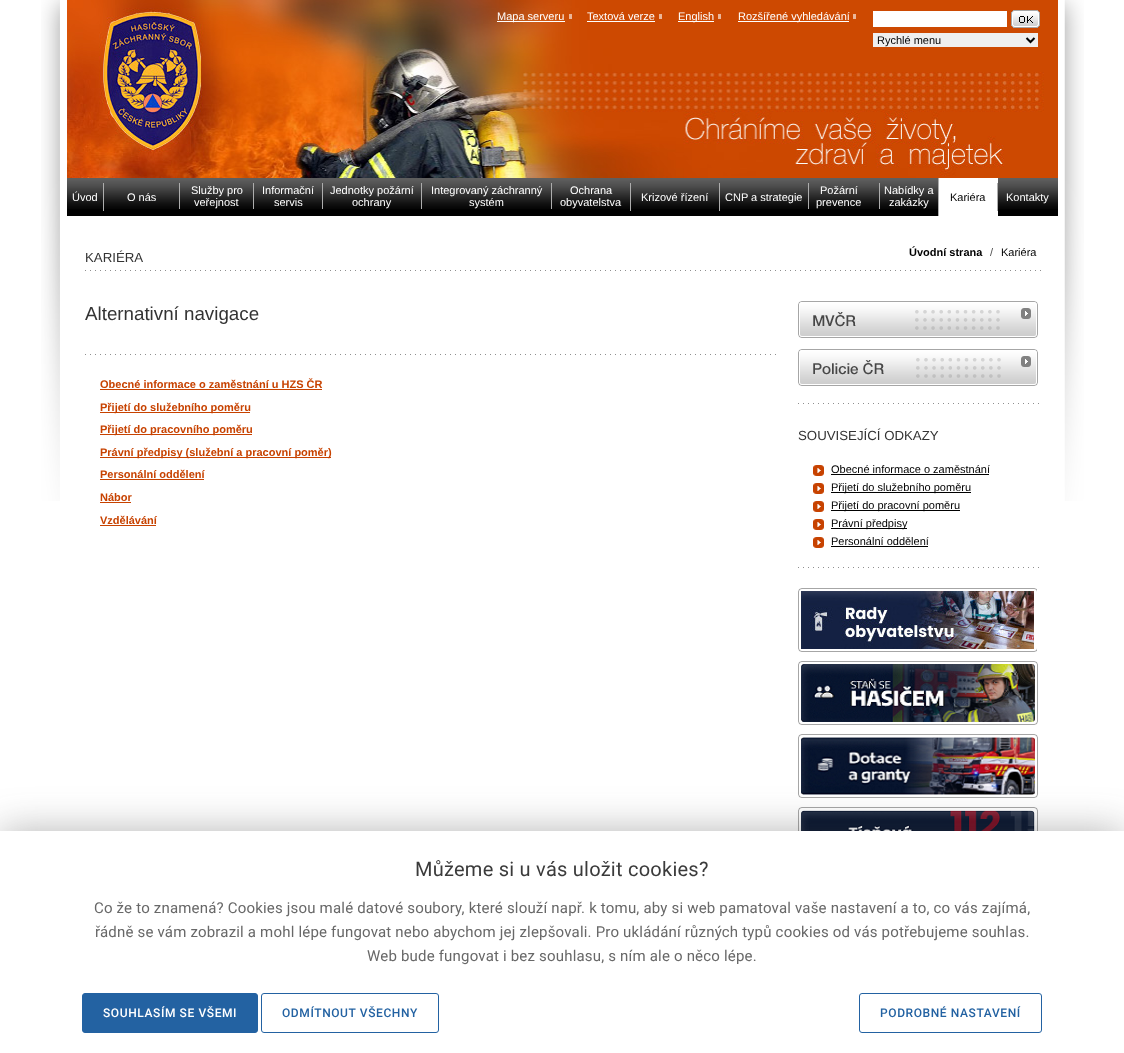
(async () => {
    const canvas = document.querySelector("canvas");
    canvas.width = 1124;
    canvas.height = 1053;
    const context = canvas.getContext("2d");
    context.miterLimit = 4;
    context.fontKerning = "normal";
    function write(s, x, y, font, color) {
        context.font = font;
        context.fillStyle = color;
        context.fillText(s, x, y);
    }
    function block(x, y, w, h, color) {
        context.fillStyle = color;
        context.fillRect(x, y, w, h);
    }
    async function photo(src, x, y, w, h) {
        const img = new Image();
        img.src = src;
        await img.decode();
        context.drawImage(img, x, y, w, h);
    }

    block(0, 0, 1124, 1053, "rgb(255, 255, 255)");
    await photo("media/1.png", 41, 0, 1043, 501);
    await photo("media/2.png", 67, 0, 991, 178);
    await photo("media/3.png", 73, 8, 139, 153);
    block(497, 21, 68, 1, "rgb(255, 255, 255)");
    write("Mapa serveru", 497, 20, "11px Liberation Sans", "rgb(255, 255, 255)");
    block(569, 14, 3, 5, "rgb(235, 182, 153)");
    write("Textová verze", 587, 20, "11px Liberation Sans", "rgb(255, 255, 255)");
    block(659, 14, 3, 5, "rgb(235, 182, 153)");
    block(587, 21, 68, 1, "rgb(255, 255, 255)");
    block(678, 21, 36, 1, "rgb(255, 255, 255)");
    write("English", 678, 20, "11px Liberation Sans", "rgb(255, 255, 255)");
    block(718, 14, 3, 5, "rgb(235, 182, 153)");
    block(738, 21, 111, 1, "rgb(255, 255, 255)");
    write("Rozšířené vyhledávání", 738, 20, "11px Liberation Sans", "rgb(255, 255, 255)");
    block(853, 14, 3, 5, "rgb(235, 182, 153)");
    block(873, 11, 134, 16, "rgb(255, 255, 255)");
    await photo("media/4.png", 1011, 10, 29, 18);
    block(873, 33, 165, 14, "rgb(239, 239, 239)");
    context.beginPath();
    context.moveTo(1026.5, 38);
    context.lineTo(1030.5, 42);
    context.lineTo(1034.5, 38);
    context.strokeStyle = "rgb(0, 0, 0)";
    context.lineWidth = 2;
    context.stroke();
    write("Rychlé menu", 877, 44, "11px Liberation Sans", "rgb(0, 0, 0)");
    block(67, 209, 991, 7, "rgb(1, 1, 1)");
    await photo("media/5.png", 67, 178, 991, 31);
    write("Úvod", 72, 201, "11px Liberation Sans", "rgb(255, 255, 255)");
    block(103, 183, 1, 28, "rgb(173, 173, 173)");
    write("O nás", 127, 201, "11px Liberation Sans", "rgb(255, 255, 255)");
    block(179, 183, 1, 26, "rgb(173, 173, 173)");
    write("Služby pro", 191, 194, "11px Liberation Sans", "rgb(255, 255, 255)");
    write("veřejnost", 194, 206, "11px Liberation Sans", "rgb(255, 255, 255)");
    block(253, 183, 1, 26, "rgb(173, 173, 173)");
    write("Informační", 262, 194, "11px Liberation Sans", "rgb(255, 255, 255)");
    write("servis", 274, 206, "11px Liberation Sans", "rgb(255, 255, 255)");
    block(322, 183, 1, 26, "rgb(173, 173, 173)");
    write("Jednotky požární", 330, 194, "11px Liberation Sans", "rgb(255, 255, 255)");
    write("ochrany", 352, 206, "11px Liberation Sans", "rgb(255, 255, 255)");
    block(421, 183, 1, 26, "rgb(173, 173, 173)");
    write("Integrovaný záchranný", 431, 194, "11px Liberation Sans", "rgb(255, 255, 255)");
    write("systém", 469, 206, "11px Liberation Sans", "rgb(255, 255, 255)");
    block(551, 183, 1, 26, "rgb(173, 173, 173)");
    write("Ochrana", 570, 194, "11px Liberation Sans", "rgb(255, 255, 255)");
    write("obyvatelstva", 560, 206, "11px Liberation Sans", "rgb(255, 255, 255)");
    block(630, 183, 1, 28, "rgb(173, 173, 173)");
    write("Krizové řízení", 641, 201, "11px Liberation Sans", "rgb(255, 255, 255)");
    block(719, 183, 1, 28, "rgb(173, 173, 173)");
    write("CNP a strategie", 725, 201, "11px Liberation Sans", "rgb(255, 255, 255)");
    block(808, 183, 1, 26, "rgb(173, 173, 173)");
    write("Požární", 820, 194, "11px Liberation Sans", "rgb(255, 255, 255)");
    write("prevence", 816, 206, "11px Liberation Sans", "rgb(255, 255, 255)");
    block(879, 183, 1, 26, "rgb(173, 173, 173)");
    write("Nabídky a", 884, 194, "11px Liberation Sans", "rgb(255, 255, 255)");
    write("zakázky", 889, 206, "11px Liberation Sans", "rgb(255, 255, 255)");
    block(939, 178, 59, 38, "rgb(255, 255, 255)");
    block(938, 178, 1, 38, "rgb(173, 173, 173)");
    write("Kariéra", 950, 201, "11px Liberation Sans", "rgb(0, 0, 0)");
    block(997, 183, 1, 28, "rgb(173, 173, 173)");
    write("Kontakty", 1006, 201, "11px Liberation Sans", "rgb(255, 255, 255)");
    await photo("media/6.png", 85, 270, 956, 1);
    write("KARIÉRA", 85, 262, "13.25px Liberation Sans", "rgb(51, 51, 51)");
    write("Úvodní strana", 909, 256, "bold 11px Liberation Sans", "rgb(0, 0, 0)");
    write("/", 990, 256, "11px Liberation Sans", "rgb(79, 79, 79)");
    write("Kariéra", 1001, 256, "11px Liberation Sans", "rgb(0, 0, 0)");
    write("Alternativní navigace", 85, 320, "18.75px Liberation Sans", "rgb(51, 51, 51)");
    await photo("media/7.png", 85, 354, 691, 1);
    write("Obecné informace o zaměstnání u HZS ČR", 100, 388, "bold 11px Liberation Sans", "rgb(199, 66, 0)");
    block(100, 389, 222, 1, "rgb(199, 66, 0)");
    block(100, 412, 150, 1, "rgb(199, 66, 0)");
    write("Přijetí do služebního poměru", 100, 411, "bold 11px Liberation Sans", "rgb(199, 66, 0)");
    block(100, 434, 152, 1, "rgb(199, 66, 0)");
    write("Přijetí do pracovního poměru", 100, 433, "bold 11px Liberation Sans", "rgb(199, 66, 0)");
    block(100, 457, 231, 1, "rgb(199, 66, 0)");
    write("Právní předpisy (služební a pracovní poměr)", 100, 456, "bold 11px Liberation Sans", "rgb(199, 66, 0)");
    write("Personální oddělení", 100, 478, "bold 11px Liberation Sans", "rgb(199, 66, 0)");
    block(100, 479, 104, 1, "rgb(199, 66, 0)");
    write("Nábor", 100, 501, "bold 11px Liberation Sans", "rgb(199, 66, 0)");
    block(100, 502, 31, 1, "rgb(199, 66, 0)");
    write("Vzdělávání", 100, 524, "bold 11px Liberation Sans", "rgb(199, 66, 0)");
    block(100, 525, 56, 1, "rgb(199, 66, 0)");
    await photo("media/8.png", 798, 403, 241, 1);
    await photo("media/9.png", 798, 301, 240, 37);
    await photo("media/10.png", 798, 349, 240, 37);
    write("SOUVISEJÍCÍ ODKAZY", 798, 440, "13.25px Liberation Sans", "rgb(51, 51, 51)");
    await photo("media/8.png", 798, 567, 241, 1);
    await photo("media/11.png", 813, 465, 11, 11);
    write("Obecné informace o zaměstnání", 831, 473, "11px Liberation Sans", "rgb(0, 0, 0)");
    block(831, 474, 158, 1, "rgb(0, 0, 0)");
    await photo("media/11.png", 813, 483, 11, 11);
    block(831, 492, 140, 1, "rgb(0, 0, 0)");
    write("Přijetí do služebního poměru", 831, 491, "11px Liberation Sans", "rgb(0, 0, 0)");
    await photo("media/11.png", 813, 501, 11, 11);
    block(831, 510, 129, 1, "rgb(0, 0, 0)");
    write("Přijetí do pracovní poměru", 831, 509, "11px Liberation Sans", "rgb(0, 0, 0)");
    await photo("media/11.png", 813, 519, 11, 11);
    block(831, 528, 76, 1, "rgb(0, 0, 0)");
    write("Právní předpisy", 831, 527, "11px Liberation Sans", "rgb(0, 0, 0)");
    await photo("media/11.png", 813, 537, 11, 11);
    write("Personální oddělení", 831, 545, "11px Liberation Sans", "rgb(0, 0, 0)");
    block(831, 546, 97, 1, "rgb(0, 0, 0)");
    await photo("media/12.png", 798, 588, 239, 64);
    await photo("media/13.png", 798, 661, 240, 64);
    await photo("media/14.png", 798, 734, 240, 64);
    await photo("media/15.png", 798, 807, 240, 24);
    context.fillStyle = "rgba(59, 59, 59, 0.4)";
    context.filter = "blur(20px)";
    context.beginPath();
    context.rect(0, 832, 1124, 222);
    context.fill();
    context.filter = "none";
    block(0, 831, 1124, 222, "rgb(255, 255, 255)");
    context.letterSpacing = "0.25px";
    write("Můžeme si u vás uložit cookies?", 415, 876, "20px Roboto", "rgb(59, 59, 59)");
    context.letterSpacing = "0.19px";
    write("Co že to znamená? Cookies jsou malé datové soubory, které slouží např. k tomu, aby si web pamatoval vaše nastavení a to, co vás zajímá,", 94, 913, "15px Roboto", "rgb(104, 104, 104)");
    write("řádně se vám zobrazil a mohl lépe fungovat nebo abychom jej zlepšovali. Pro ukládání různých typů cookies od vás potřebujeme souhlas.", 95, 937, "15px Roboto", "rgb(104, 104, 104)");
    write("Web bude fungovat i bez souhlasu, s ním ale o něco lépe.", 367, 961, "15px Roboto", "rgb(104, 104, 104)");
    context.fillStyle = "rgb(35, 98, 162)";
    context.beginPath();
    context.roundRect(82.5, 993.5, 175, 39, 2.5);
    context.fill();
    context.strokeStyle = "rgb(35, 98, 162)";
    context.lineWidth = 1;
    context.stroke();
    context.letterSpacing = "0.6px";
    write("SOUHLASÍM SE VŠEMI", 103, 1017, "500 12px Roboto", "rgb(255, 255, 255)");
    context.beginPath();
    context.roundRect(261.5, 993.5, 177, 39, 2.5);
    context.stroke();
    write("ODMÍTNOUT VŠECHNY", 282, 1017, "500 12px Roboto", "rgb(35, 98, 162)");
    context.beginPath();
    context.roundRect(859.5, 993.5, 182, 39, 2.5);
    context.stroke();
    write("PODROBNÉ NASTAVENÍ", 880, 1017, "500 12px Roboto", "rgb(35, 98, 162)");
})();
